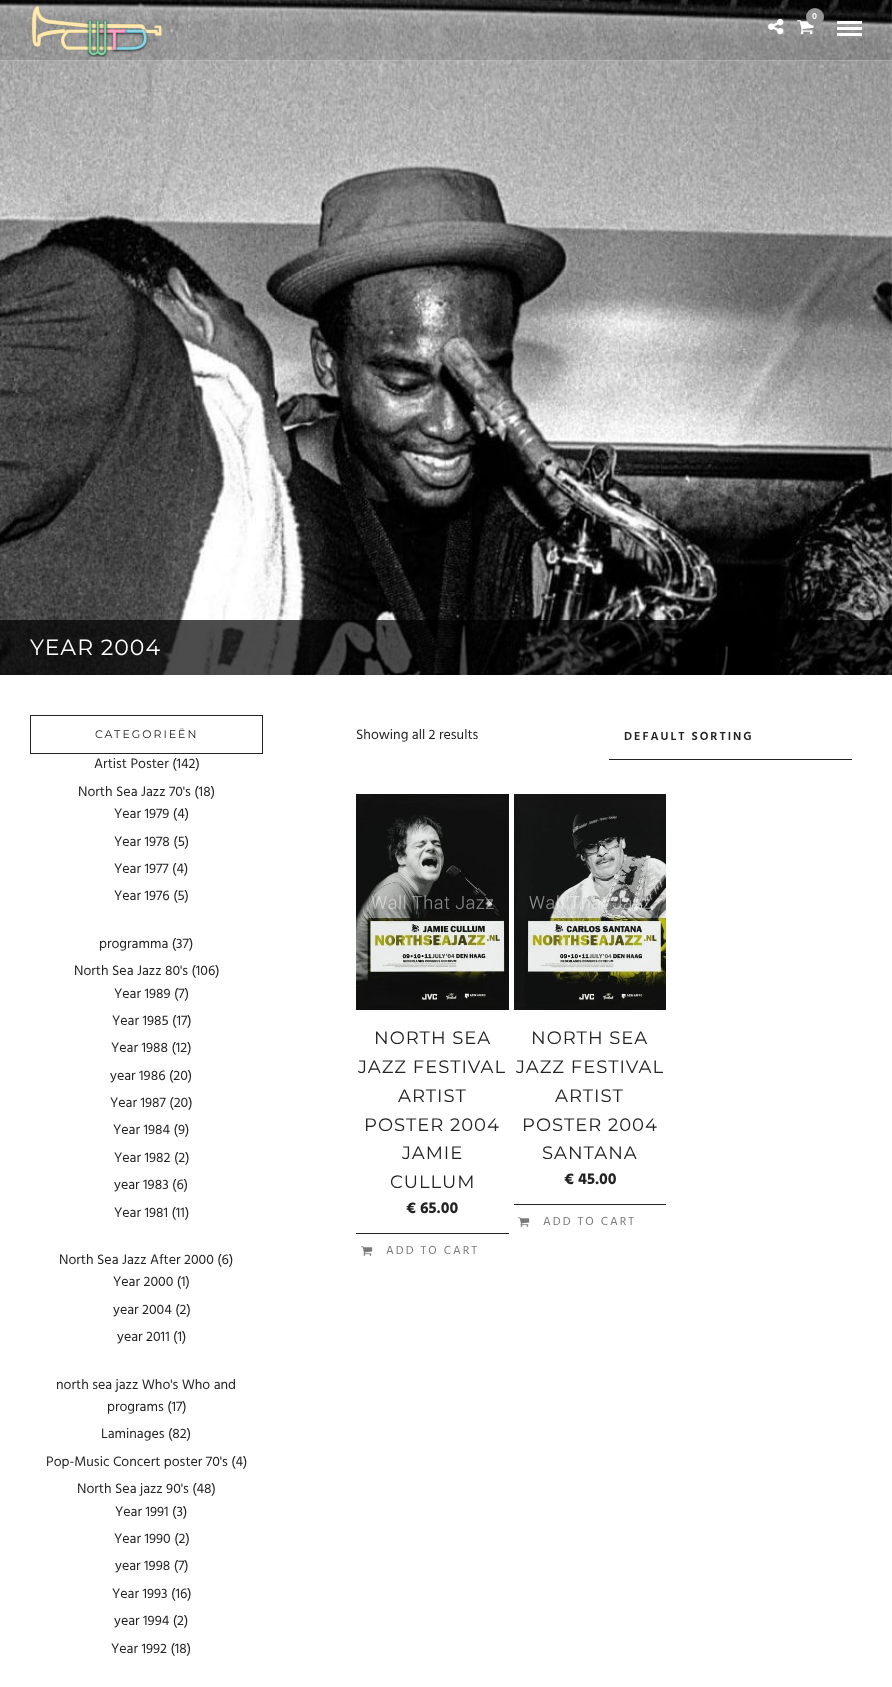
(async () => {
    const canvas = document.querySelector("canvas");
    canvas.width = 892;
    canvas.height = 1687;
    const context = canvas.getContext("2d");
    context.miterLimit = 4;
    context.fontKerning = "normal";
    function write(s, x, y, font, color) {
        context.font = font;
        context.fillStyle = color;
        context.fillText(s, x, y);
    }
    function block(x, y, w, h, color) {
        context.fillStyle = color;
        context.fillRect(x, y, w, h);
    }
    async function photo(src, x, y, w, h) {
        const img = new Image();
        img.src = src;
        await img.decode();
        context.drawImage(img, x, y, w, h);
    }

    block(0, 0, 892, 1687, "rgb(255, 255, 255)");
    await photo("media/4.png", 0, 0, 892, 675);
    block(0, 0, 892, 61, "rgba(0, 0, 0, 0.1)");
    block(0, 60, 892, 1, "rgba(255, 255, 255, 0.3)");
    await photo("media/1.png", 32, 6, 130, 51);
    await photo("media/2.png", 797, 20, 17, 15);
    context.fillStyle = "rgb(149, 149, 149)";
    context.beginPath();
    context.arc(815, 17, 9, 0, Math.PI * 2);
    context.fill();
    write("0", 812, 19, "600 9px Hind", "rgb(255, 255, 255)");
    await photo("media/3.png", 768, 18, 16, 17);
    block(837, 21, 25, 3, "rgb(255, 255, 255)");
    block(837, 27, 25, 3, "rgb(255, 255, 255)");
    block(837, 33, 25, 3, "rgb(255, 255, 255)");
    block(0, 620, 892, 55, "rgba(0, 0, 0, 0.7)");
    context.letterSpacing = "1px";
    write("YEAR 2004", 30, 655, "100 22px Montserrat", "rgb(255, 255, 255)");
    context.strokeStyle = "rgb(34, 34, 34)";
    context.strokeRect(30.5, 715.5, 232, 38);
    context.letterSpacing = "2px";
    write("CATEGORIEËN", 95, 738, "100 11px Montserrat", "rgb(34, 34, 34)");
    context.letterSpacing = "0px";
    write("Artist Poster (142)", 94, 768, "14px Hind", "rgb(34, 34, 34)");
    write("North Sea Jazz 70's (18)", 78, 796, "14px Hind", "rgb(34, 34, 34)");
    write("Year 1979 (4)", 114, 818, "14px Hind", "rgb(34, 34, 34)");
    write("Year 1978 (5)", 114, 846, "14px Hind", "rgb(34, 34, 34)");
    write("Year 1977 (4)", 114, 873, "14px Hind", "rgb(34, 34, 34)");
    write("Year 1976 (5)", 114, 900, "14px Hind", "rgb(34, 34, 34)");
    write("programma (37)", 99, 948, "14px Hind", "rgb(34, 34, 34)");
    write("North Sea Jazz 80's (106)", 74, 975, "14px Hind", "rgb(34, 34, 34)");
    write("Year 1989 (7)", 114, 998, "14px Hind", "rgb(34, 34, 34)");
    write("Year 1985 (17)", 112, 1025, "14px Hind", "rgb(34, 34, 34)");
    write("Year 1988 (12)", 111, 1052, "14px Hind", "rgb(34, 34, 34)");
    write("year 1986 (20)", 110, 1080, "14px Hind", "rgb(34, 34, 34)");
    write("Year 1987 (20)", 110, 1107, "14px Hind", "rgb(34, 34, 34)");
    write("Year 1984 (9)", 113, 1134, "14px Hind", "rgb(34, 34, 34)");
    write("Year 1982 (2)", 114, 1162, "14px Hind", "rgb(34, 34, 34)");
    write("year 1983 (6)", 114, 1189, "14px Hind", "rgb(34, 34, 34)");
    write("Year 1981 (11)", 114, 1217, "14px Hind", "rgb(34, 34, 34)");
    write("North Sea Jazz After 2000 (6)", 59, 1264, "14px Hind", "rgb(34, 34, 34)");
    write("Year 2000 (1)", 113, 1286, "14px Hind", "rgb(34, 34, 34)");
    write("year 2004 (2)", 113, 1314, "14px Hind", "rgb(34, 34, 34)");
    write("year 2011 (1)", 117, 1341, "14px Hind", "rgb(34, 34, 34)");
    write("north sea jazz Who's Who and", 56, 1389, "14px Hind", "rgb(34, 34, 34)");
    write("programs (17)", 107, 1411, "14px Hind", "rgb(34, 34, 34)");
    write("Laminages (82)", 101, 1438, "14px Hind", "rgb(34, 34, 34)");
    write("Pop-Music Concert poster 70's (4)", 46, 1466, "14px Hind", "rgb(34, 34, 34)");
    write("North Sea jazz 90's (48)", 77, 1493, "14px Hind", "rgb(34, 34, 34)");
    write("Year 1991 (3)", 115, 1516, "14px Hind", "rgb(34, 34, 34)");
    write("Year 1990 (2)", 114, 1543, "14px Hind", "rgb(34, 34, 34)");
    write("year 1998 (7)", 115, 1570, "14px Hind", "rgb(34, 34, 34)");
    write("Year 1993 (16)", 112, 1598, "14px Hind", "rgb(34, 34, 34)");
    write("year 1994 (2)", 114, 1625, "14px Hind", "rgb(34, 34, 34)");
    write("Year 1992 (18)", 111, 1653, "14px Hind", "rgb(34, 34, 34)");
    write("Showing all 2 results", 356, 739, "14px Hind", "rgb(34, 34, 34)");
    block(609, 759, 243, 1, "rgb(34, 34, 34)");
    context.letterSpacing = "2px";
    write("DEFAULT SORTING", 624, 740, "600 12px Hind", "rgb(34, 34, 34)");
    await photo("media/5.png", 356, 794, 153, 216);
    context.letterSpacing = "1px";
    write("NORTH SEA", 374, 1044, "100 18px Montserrat", "rgb(34, 34, 34)");
    write("JAZZ FESTIVAL", 358, 1073, "100 18px Montserrat", "rgb(34, 34, 34)");
    write("ARTIST", 398, 1102, "100 18px Montserrat", "rgb(34, 34, 34)");
    write("POSTER 2004", 364, 1131, "100 18px Montserrat", "rgb(34, 34, 34)");
    write("JAMIE", 402, 1159, "100 18px Montserrat", "rgb(34, 34, 34)");
    write("CULLUM", 390, 1188, "100 18px Montserrat", "rgb(34, 34, 34)");
    block(356, 1233, 153, 1, "rgb(34, 34, 34)");
    context.letterSpacing = "0px";
    write("€ 65.00", 406, 1213, "bold 16px Hind", "rgb(34, 34, 34)");
    await photo("media/6.png", 361, 1246, 12, 10);
    context.letterSpacing = "2px";
    write("ADD TO CART", 386, 1254, "12px Hind", "rgb(122, 122, 122)");
    await photo("media/7.png", 514, 794, 152, 216);
    context.letterSpacing = "1px";
    write("NORTH SEA", 531, 1044, "100 18px Montserrat", "rgb(34, 34, 34)");
    write("JAZZ FESTIVAL", 516, 1073, "100 18px Montserrat", "rgb(34, 34, 34)");
    write("ARTIST", 555, 1102, "100 18px Montserrat", "rgb(34, 34, 34)");
    write("POSTER 2004", 522, 1131, "100 18px Montserrat", "rgb(34, 34, 34)");
    write("SANTANA", 542, 1159, "100 18px Montserrat", "rgb(34, 34, 34)");
    block(514, 1204, 152, 1, "rgb(34, 34, 34)");
    context.letterSpacing = "0px";
    write("€ 45.00", 564, 1184, "bold 16px Hind", "rgb(34, 34, 34)");
    await photo("media/6.png", 518, 1217, 12, 10);
    context.letterSpacing = "2px";
    write("ADD TO CART", 543, 1225, "12px Hind", "rgb(122, 122, 122)");
})();
